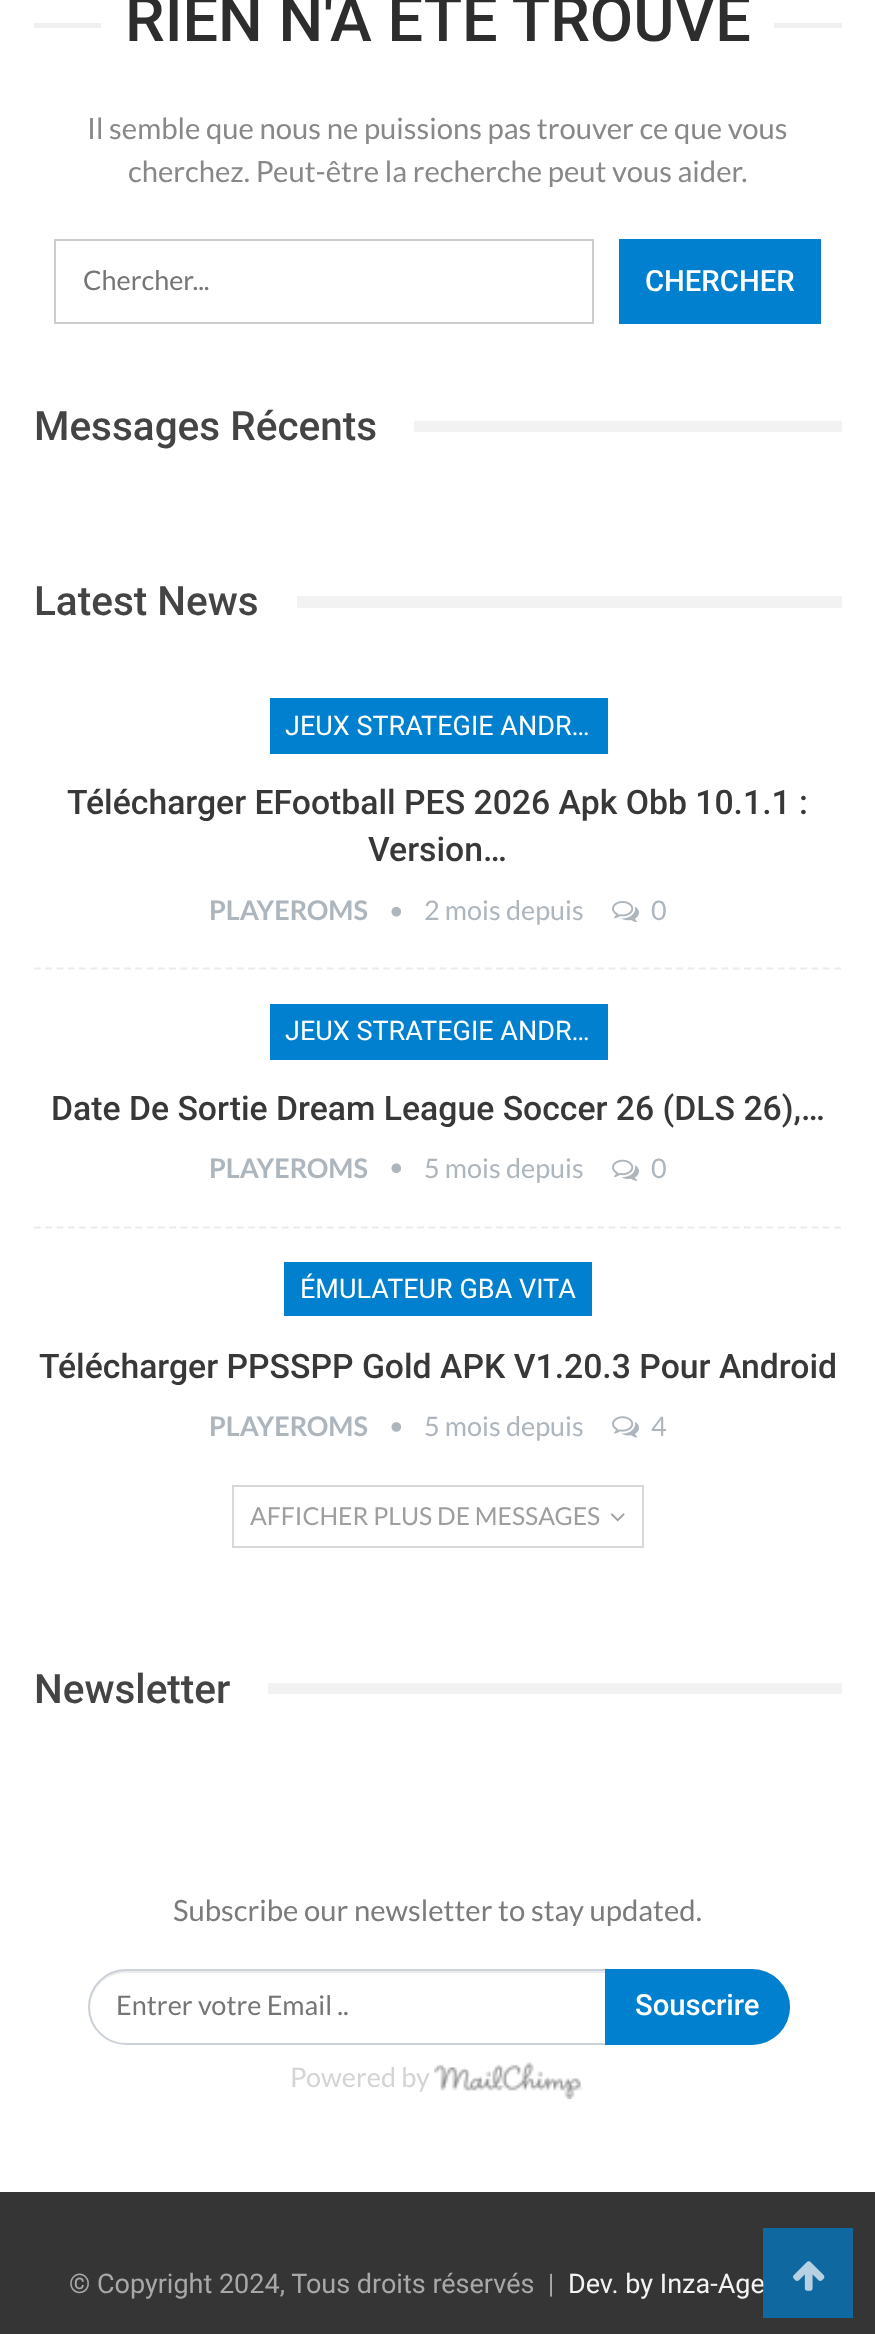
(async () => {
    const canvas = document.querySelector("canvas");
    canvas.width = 875;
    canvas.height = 2334;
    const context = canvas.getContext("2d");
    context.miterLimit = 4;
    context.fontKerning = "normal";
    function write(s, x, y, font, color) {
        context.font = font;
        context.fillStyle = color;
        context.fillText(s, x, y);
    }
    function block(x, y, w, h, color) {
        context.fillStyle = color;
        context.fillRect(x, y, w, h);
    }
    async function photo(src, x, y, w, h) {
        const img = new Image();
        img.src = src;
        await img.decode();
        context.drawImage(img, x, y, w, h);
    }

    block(0, 0, 875, 2334, "rgb(255, 255, 255)");
    block(34, 23, 808, 5, "rgb(240, 240, 240)");
    block(101, 23, 673, 5, "rgb(255, 255, 255)");
    write("RIEN N'A ÉTÉ TROUVÉ", 125, 41, "500 63px Roboto", "rgb(45, 45, 45)");
    write("Il semble que nous ne puissions pas trouver ce que vous", 87, 139, "29.25px Lato", "rgb(136, 136, 136)");
    write("cherchez. Peut-être la recherche peut vous aider.", 128, 182, "29.25px Lato", "rgb(136, 136, 136)");
    context.strokeStyle = "rgb(204, 204, 204)";
    context.lineWidth = 2;
    context.strokeRect(55, 240, 538, 83);
    write("Chercher...", 83, 290, "27px Lato", "rgb(117, 117, 117)");
    block(619, 239, 202, 85, "rgb(0, 128, 206)");
    write("CHERCHER", 645, 291, "500 29.25px Roboto", "rgb(255, 255, 255)");
    write("Messages Récents", 34, 440, "500 40.5px Roboto", "rgb(68, 68, 68)");
    block(414, 421, 428, 11, "rgb(242, 242, 242)");
    write("Latest News", 34, 615, "500 40.5px Roboto", "rgb(68, 68, 68)");
    block(297, 596, 545, 12, "rgb(242, 242, 242)");
    context.beginPath();
    context.moveTo(34, 968.5);
    context.lineTo(841.5, 968.5);
    context.strokeStyle = "rgb(235, 235, 235)";
    context.lineWidth = 2.2;
    context.setLineDash([6.75, 4.52]);
    context.stroke();
    block(270, 698, 338, 56, "rgb(0, 128, 206)");
    write("JEUX STRATEGIE ANDR…", 285, 735, "27px Roboto", "rgb(255, 255, 255)");
    write("Télécharger EFootball PES 2026 Apk Obb 10.1.1 :", 67, 814, "500 33.75px Roboto", "rgb(56, 56, 56)");
    write("Version…", 368, 861, "500 33.75px Roboto", "rgb(56, 56, 56)");
    write("PLAYEROMS", 209, 920, "bold 27px Lato", "rgb(173, 181, 189)");
    await photo("media/1.png", 391, 906, 10, 11);
    write("2 mois depuis", 424, 920, "27px Lato", "rgb(173, 181, 189)");
    await photo("media/2.png", 612, 901, 27, 22);
    write("0", 651, 920, "27px Lato", "rgb(173, 181, 189)");
    context.beginPath();
    context.moveTo(34, 1227.5);
    context.lineTo(841.5, 1227.5);
    context.stroke();
    block(270, 1004, 338, 56, "rgb(0, 128, 206)");
    write("JEUX STRATEGIE ANDR…", 285, 1040, "27px Roboto", "rgb(255, 255, 255)");
    write("Date De Sortie Dream League Soccer 26 (DLS 26),…", 51, 1120, "500 33.75px Roboto", "rgb(56, 56, 56)");
    write("PLAYEROMS", 209, 1178, "bold 27px Lato", "rgb(173, 181, 189)");
    await photo("media/3.png", 391, 1163, 10, 10);
    write("5 mois depuis", 424, 1178, "27px Lato", "rgb(173, 181, 189)");
    await photo("media/4.png", 612, 1159, 27, 22);
    write("0", 651, 1178, "27px Lato", "rgb(173, 181, 189)");
    block(284, 1262, 308, 54, "rgb(0, 128, 206)");
    write("ÉMULATEUR GBA VITA", 300, 1298, "27px Roboto", "rgb(255, 255, 255)");
    write("Télécharger PPSSPP Gold APK V1.20.3 Pour Android", 39, 1378, "500 33.75px Roboto", "rgb(56, 56, 56)");
    write("PLAYEROMS", 209, 1436, "bold 27px Lato", "rgb(173, 181, 189)");
    await photo("media/5.png", 391, 1422, 10, 10);
    write("5 mois depuis", 424, 1436, "27px Lato", "rgb(173, 181, 189)");
    await photo("media/6.png", 612, 1416, 27, 22);
    write("4", 651, 1436, "27px Lato", "rgb(173, 181, 189)");
    context.strokeStyle = "rgb(216, 216, 216)";
    context.lineWidth = 2;
    context.setLineDash([]);
    context.strokeRect(233, 1486, 410, 61);
    write("AFFICHER PLUS DE MESSAGES", 250, 1525, "24.75px Lato", "rgb(158, 158, 158)");
    await photo("media/7.png", 610, 1513, 15, 9);
    write("Newsletter", 34, 1703, "500 40.5px Roboto", "rgb(68, 68, 68)");
    block(268, 1683, 574, 11, "rgb(242, 242, 242)");
    write("Subscribe our newsletter to stay updated.", 173, 1921, "29.25px Lato", "rgb(123, 123, 123)");
    context.fillStyle = "rgb(236, 236, 236)";
    context.beginPath();
    context.moveTo(126, 1973);
    context.lineTo(752, 1973);
    context.bezierCurveTo(771, 1973, 787, 1988, 788, 2008);
    context.bezierCurveTo(789, 1988, 772, 1971, 752, 1971);
    context.lineTo(126, 1971);
    context.bezierCurveTo(106, 1971, 89, 1988, 90, 2008);
    context.bezierCurveTo(91, 1988, 106, 1973, 126, 1973);
    context.closePath();
    context.fill();
    context.beginPath();
    context.roundRect(89, 1970, 700, 74, 37);
    context.strokeStyle = "rgb(203, 209, 216)";
    context.stroke();
    write("Entrer votre Email ..", 116, 2015, "27px Lato", "rgb(117, 117, 117)");
    context.fillStyle = "rgb(0, 128, 206)";
    context.beginPath();
    context.roundRect(605, 1969, 185, 76, [0, 38, 38, 0]);
    context.fill();
    write("Souscrire", 635, 2015, "500 29.25px Roboto", "rgb(255, 255, 255)");
    write("Powered by", 290, 2087, "27px Lato", "rgb(212, 212, 212)");
    await photo("media/8.png", 434, 2061, 149, 38);
    block(0, 2192, 875, 142, "rgb(53, 53, 53)");
    write("© Copyright 2024, Tous droits réservés  |", 69, 2293, "27px Roboto", "rgb(168, 168, 168)");
    write("Dev. by Inza-Age", 568, 2293, "27px Roboto", "rgb(243, 243, 243)");
    block(763, 2228, 90, 90, "rgba(0, 128, 206, 0.7)");
    await photo("media/9.png", 793, 2261, 32, 30);
})();
